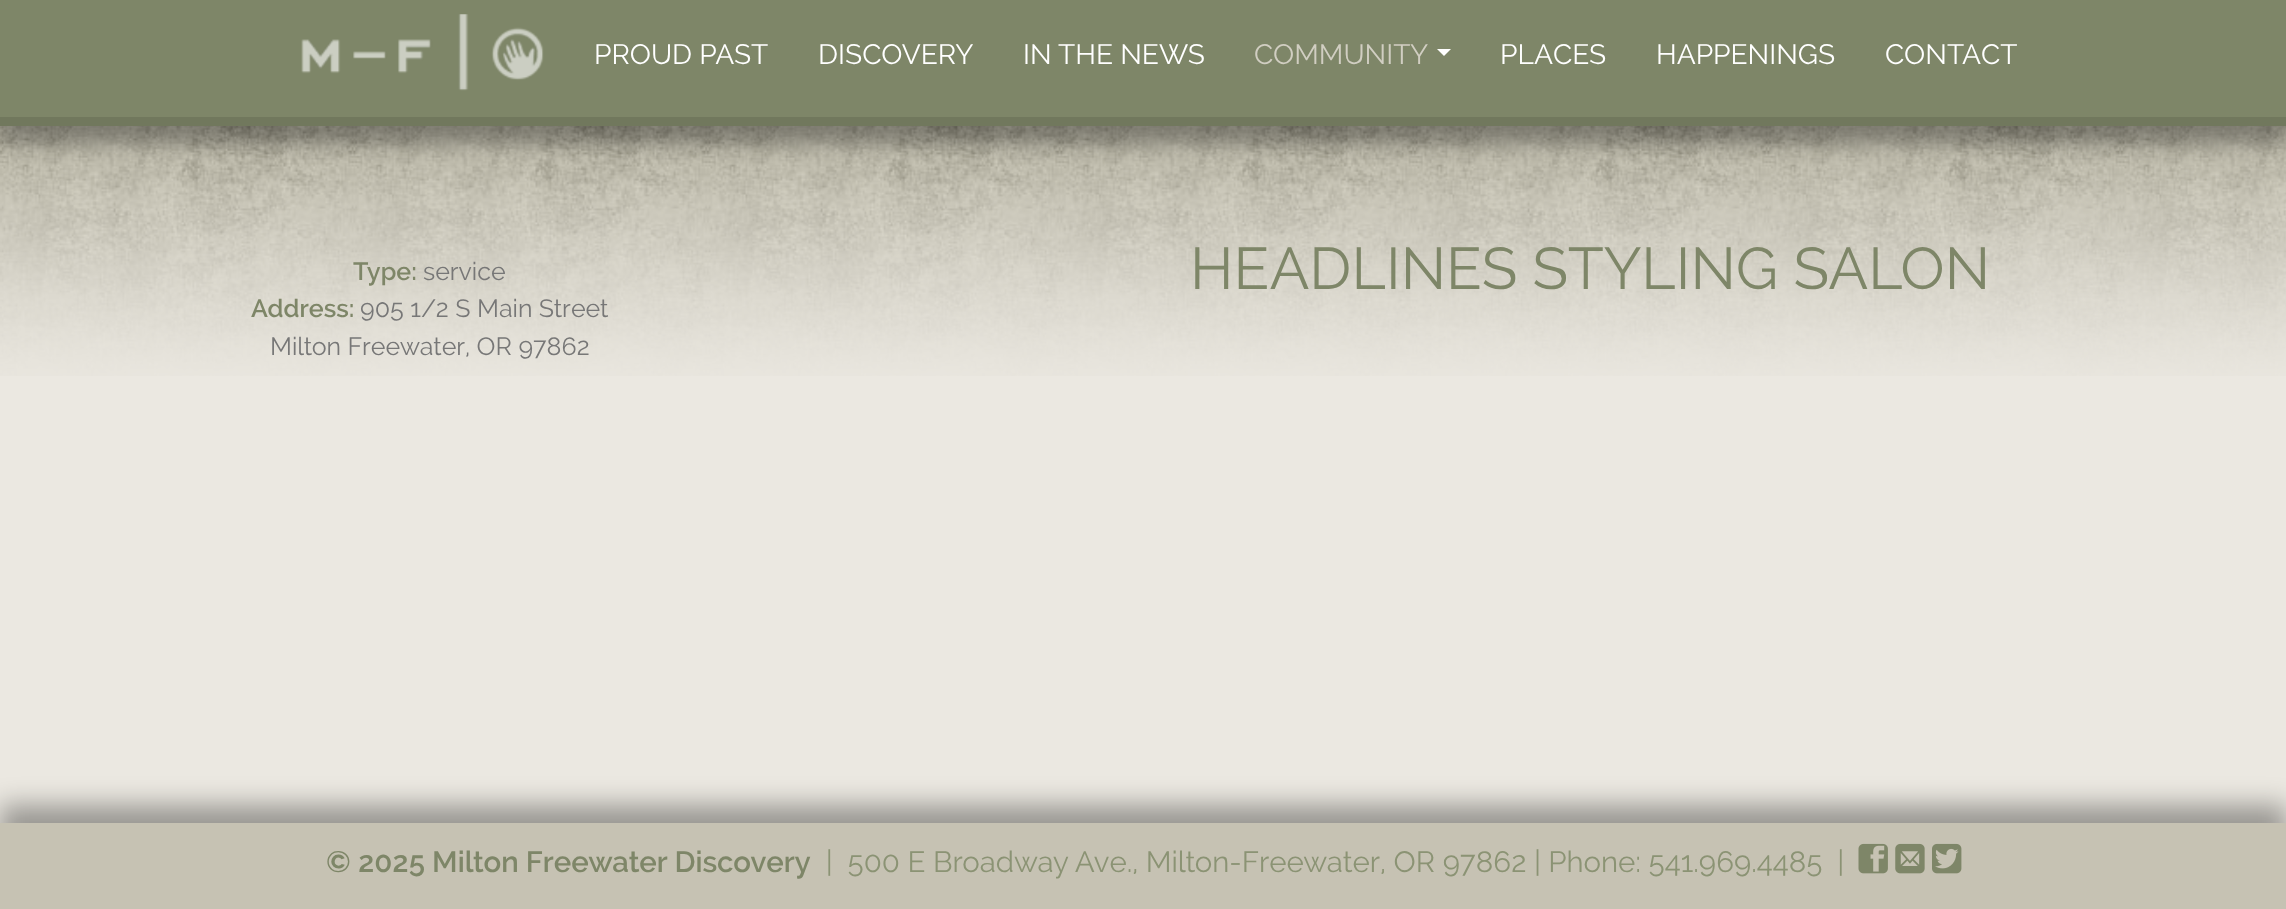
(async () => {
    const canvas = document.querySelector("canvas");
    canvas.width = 2286;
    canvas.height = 909;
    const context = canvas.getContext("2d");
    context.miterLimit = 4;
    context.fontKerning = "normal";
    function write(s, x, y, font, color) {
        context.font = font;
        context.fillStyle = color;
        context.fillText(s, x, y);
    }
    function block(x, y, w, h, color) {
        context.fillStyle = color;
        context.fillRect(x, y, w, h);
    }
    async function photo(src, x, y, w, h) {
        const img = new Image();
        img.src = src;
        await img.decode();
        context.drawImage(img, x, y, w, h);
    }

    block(0, 0, 2286, 909, "rgb(235, 232, 225)");
    await photo("media/2.png", 0, 126, 2286, 250);
    context.fillStyle = "rgba(0, 0, 0, 0.3)";
    context.filter = "blur(9px)";
    context.beginPath();
    context.rect(0, 18, 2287, 126);
    context.fill();
    context.filter = "none";
    block(0, 0, 2286, 117, "rgb(126, 134, 104)");
    block(0, 117, 2286, 9, "rgb(113, 120, 93)");
    await photo("media/1.png", 301, 14, 243, 77);
    write("PROUD PAST", 594, 64, "28px Raleway", "rgb(255, 255, 255)");
    write("DISCOVERY", 818, 64, "28px Raleway", "rgb(255, 255, 255)");
    write("IN THE NEWS", 1023, 64, "28px Raleway", "rgb(255, 255, 255)");
    write("COMMUNITY", 1254, 64, "28px Raleway", "rgb(209, 206, 194)");
    context.fillStyle = "rgb(255, 255, 255)";
    context.beginPath();
    context.moveTo(1437, 49);
    context.lineTo(1451, 49);
    context.lineTo(1444, 56);
    context.closePath();
    context.fill();
    write("PLACES", 1500, 64, "28px Raleway", "rgb(255, 255, 255)");
    write("HAPPENINGS", 1656, 64, "28px Raleway", "rgb(255, 255, 255)");
    write("CONTACT", 1885, 64, "28px Raleway", "rgb(255, 255, 255)");
    write("Type:", 353, 280, "600 25px Raleway", "rgb(126, 134, 104)");
    write("service", 423, 280, "25px Raleway", "rgb(119, 119, 119)");
    write("Address:", 251, 317, "600 25px Raleway", "rgb(126, 134, 104)");
    write("905 1/2 S Main Street", 360, 317, "25px Raleway", "rgb(119, 119, 119)");
    write("Milton Freewater, OR 97862", 270, 355, "25px Raleway", "rgb(119, 119, 119)");
    write("HEADLINES STYLING SALON", 1190, 289, "58.75px Raleway", "rgb(126, 134, 104)");
    context.fillStyle = "rgba(0, 0, 0, 0.35)";
    context.filter = "blur(13px)";
    context.beginPath();
    context.rect(0, 805, 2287, 88);
    context.fill();
    context.filter = "none";
    block(0, 823, 2286, 86, "rgb(198, 194, 179)");
    write("© 2025 Milton Freewater Discovery", 326, 872, "600 29.4px Raleway", "rgb(126, 134, 104)");
    write("|  500 E Broadway Ave., Milton-Freewater, OR 97862 | Phone: 541.969.4485  |", 826, 872, "29.4px Raleway", "rgb(139, 147, 116)");
    await photo("media/3.png", 1858, 843, 30, 31);
    await photo("media/4.png", 1895, 843, 30, 31);
    await photo("media/5.png", 1932, 843, 30, 31);
})();
